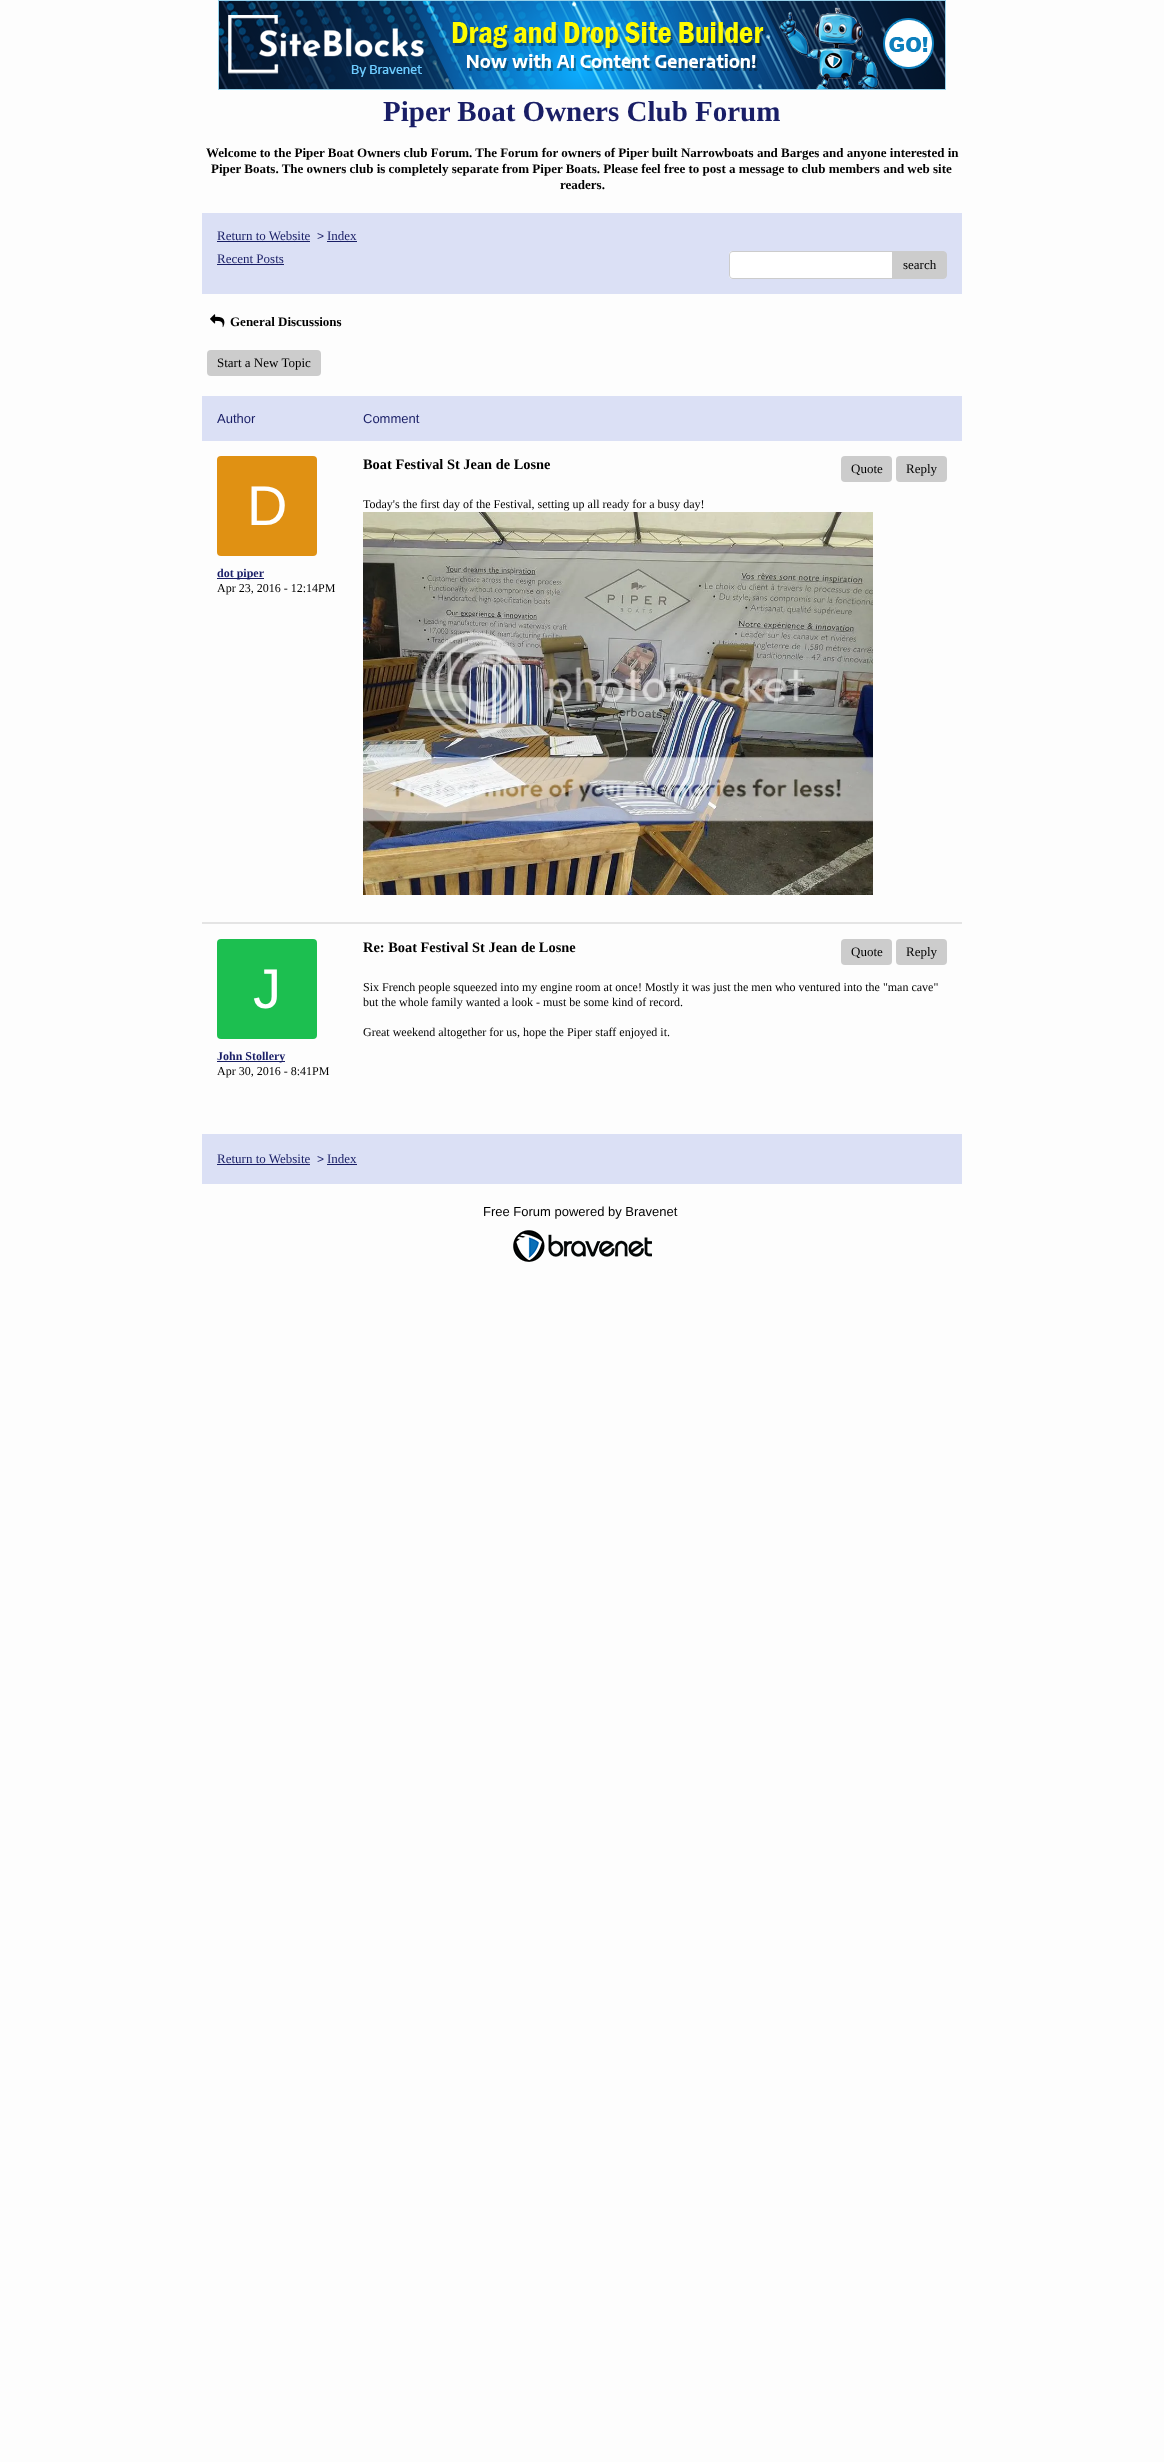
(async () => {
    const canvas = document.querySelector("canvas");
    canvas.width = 1164;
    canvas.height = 2462;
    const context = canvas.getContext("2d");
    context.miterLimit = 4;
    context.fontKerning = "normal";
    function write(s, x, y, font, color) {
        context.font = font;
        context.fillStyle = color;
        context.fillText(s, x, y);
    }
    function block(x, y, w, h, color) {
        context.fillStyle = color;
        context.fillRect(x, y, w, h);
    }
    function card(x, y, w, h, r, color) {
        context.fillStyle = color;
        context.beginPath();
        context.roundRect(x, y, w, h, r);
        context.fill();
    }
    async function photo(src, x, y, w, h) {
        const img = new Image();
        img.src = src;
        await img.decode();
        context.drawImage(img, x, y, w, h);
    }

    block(0, 0, 1164, 2462, "rgb(253, 253, 253)");
    await photo("media/1.png", 218, 0, 728, 90);
    write("Piper Boat Owners Club Forum", 383, 121, "bold 29px Liberation Serif", "rgb(25, 30, 102)");
    write("Welcome to the Piper Boat Owners club Forum. The Forum for owners of Piper built Narrowboats and Barges and anyone interested in", 206, 157, "bold 13px Liberation Serif", "rgb(0, 0, 0)");
    write("Piper Boats. The owners club is completely separate from Piper Boats. Please feel free to post a message to club members and web site", 211, 173, "bold 13px Liberation Serif", "rgb(0, 0, 0)");
    write("readers.", 560, 189, "bold 13px Liberation Serif", "rgb(0, 0, 0)");
    block(202, 213, 760, 81, "rgb(219, 224, 245)");
    write("Return to Website", 217, 240, "13px Liberation Serif", "rgb(25, 30, 102)");
    block(217, 241, 93, 1, "rgb(25, 30, 102)");
    write(">", 317, 240, "12px Liberation Sans", "rgb(25, 30, 102)");
    write("Index", 327, 240, "13px Liberation Serif", "rgb(25, 30, 102)");
    block(327, 241, 30, 1, "rgb(25, 30, 102)");
    write("Recent Posts", 217, 263, "13px Liberation Serif", "rgb(25, 30, 102)");
    block(217, 264, 67, 1, "rgb(25, 30, 102)");
    card(729, 251, 208, 28, 4, "rgb(255, 255, 255)");
    context.fillStyle = "rgb(204, 204, 204)";
    context.beginPath();
    context.moveTo(733, 251);
    context.lineTo(933, 251);
    context.bezierCurveTo(935, 251, 937, 253, 937, 255);
    context.lineTo(937, 275);
    context.bezierCurveTo(937, 277, 935, 279, 933, 279);
    context.lineTo(733, 279);
    context.bezierCurveTo(731, 279, 729, 277, 729, 275);
    context.lineTo(729, 255);
    context.bezierCurveTo(729, 253, 731, 251, 733, 251);
    context.closePath();
    context.moveTo(733, 252);
    context.lineTo(933, 252);
    context.bezierCurveTo(935, 252, 937, 253, 937, 255);
    context.lineTo(937, 275);
    context.bezierCurveTo(937, 277, 935, 278, 933, 278);
    context.lineTo(733, 278);
    context.bezierCurveTo(731, 278, 730, 277, 730, 275);
    context.lineTo(730, 255);
    context.bezierCurveTo(730, 253, 731, 252, 733, 252);
    context.closePath();
    context.fill("evenodd");
    context.beginPath();
    context.roundRect(892.5, 251.5, 54, 27, [0, 3.5, 3.5, 0]);
    context.fill();
    context.strokeStyle = "rgb(204, 204, 204)";
    context.stroke();
    write("search", 903, 269, "13px Liberation Serif", "rgb(0, 0, 0)");
    await photo("media/2.png", 210, 314, 15, 14);
    write("General Discussions", 230, 326, "bold 13px Liberation Serif", "rgb(0, 0, 0)");
    card(207, 350, 114, 26, 4, "rgb(204, 204, 204)");
    write("Start a New Topic", 217, 367, "13px Liberation Serif", "rgb(0, 0, 0)");
    block(202, 396, 760, 45, "rgb(219, 224, 245)");
    write("Author", 217, 423, "13px Liberation Sans", "rgb(25, 30, 102)");
    write("Comment", 363, 423, "13px Liberation Sans", "rgb(25, 30, 102)");
    block(202, 922, 760, 2, "rgb(228, 228, 228)");
    card(217, 456, 100, 100, 4, "rgb(224, 145, 19)");
    write("D", 247, 525, "56px Liberation Sans", "rgb(255, 255, 255)");
    block(217, 578, 47, 1, "rgb(25, 30, 102)");
    write("dot piper", 217, 577, "bold 12px Liberation Serif", "rgb(25, 30, 102)");
    write("Apr 23, 2016 - 12:14PM", 217, 592, "12px Liberation Serif", "rgb(0, 0, 0)");
    write("Boat Festival St Jean de Losne", 363, 469, "bold 14.4px Liberation Serif", "rgb(0, 0, 0)");
    card(841, 456, 51, 26, 4, "rgb(204, 204, 204)");
    write("Quote", 851, 473, "13px Liberation Serif", "rgb(0, 0, 0)");
    card(896, 456, 51, 26, 4, "rgb(204, 204, 204)");
    write("Reply", 906, 473, "13px Liberation Serif", "rgb(0, 0, 0)");
    write("Today's the first day of the Festival, setting up all ready for a busy day!", 363, 508, "12px Liberation Serif", "rgb(0, 0, 0)");
    await photo("media/3.png", 363, 512, 510, 383);
    card(217, 939, 100, 100, 4, "rgb(28, 191, 80)");
    write("J", 253, 1008, "56px Liberation Sans", "rgb(255, 255, 255)");
    block(217, 1061, 68, 1, "rgb(25, 30, 102)");
    write("John Stollery", 217, 1060, "bold 12px Liberation Serif", "rgb(25, 30, 102)");
    write("Apr 30, 2016 - 8:41PM", 217, 1075, "12px Liberation Serif", "rgb(0, 0, 0)");
    write("Re: Boat Festival St Jean de Losne", 363, 952, "bold 14.4px Liberation Serif", "rgb(0, 0, 0)");
    card(841, 939, 51, 26, 4, "rgb(204, 204, 204)");
    write("Quote", 851, 956, "13px Liberation Serif", "rgb(0, 0, 0)");
    card(896, 939, 51, 26, 4, "rgb(204, 204, 204)");
    write("Reply", 906, 956, "13px Liberation Serif", "rgb(0, 0, 0)");
    write("Six French people squeezed into my engine room at once! Mostly it was just the men who ventured into the \"man cave\"", 363, 991, "12px Liberation Serif", "rgb(0, 0, 0)");
    write("but the whole family wanted a look - must be some kind of record.", 363, 1006, "12px Liberation Serif", "rgb(0, 0, 0)");
    write("Great weekend altogether for us, hope the Piper staff enjoyed it.", 363, 1036, "12px Liberation Serif", "rgb(0, 0, 0)");
    block(202, 1134, 760, 50, "rgb(219, 224, 245)");
    write("Return to Website", 217, 1163, "13px Liberation Serif", "rgb(25, 30, 102)");
    block(217, 1164, 93, 1, "rgb(25, 30, 102)");
    write(">", 317, 1163, "12px Liberation Sans", "rgb(25, 30, 102)");
    write("Index", 327, 1163, "13px Liberation Serif", "rgb(25, 30, 102)");
    block(327, 1164, 30, 1, "rgb(25, 30, 102)");
    write("Free Forum powered by Bravenet", 483, 1216, "13px Liberation Sans", "rgb(0, 0, 0)");
    await photo("media/4.png", 513, 1230, 139, 32);
})();
